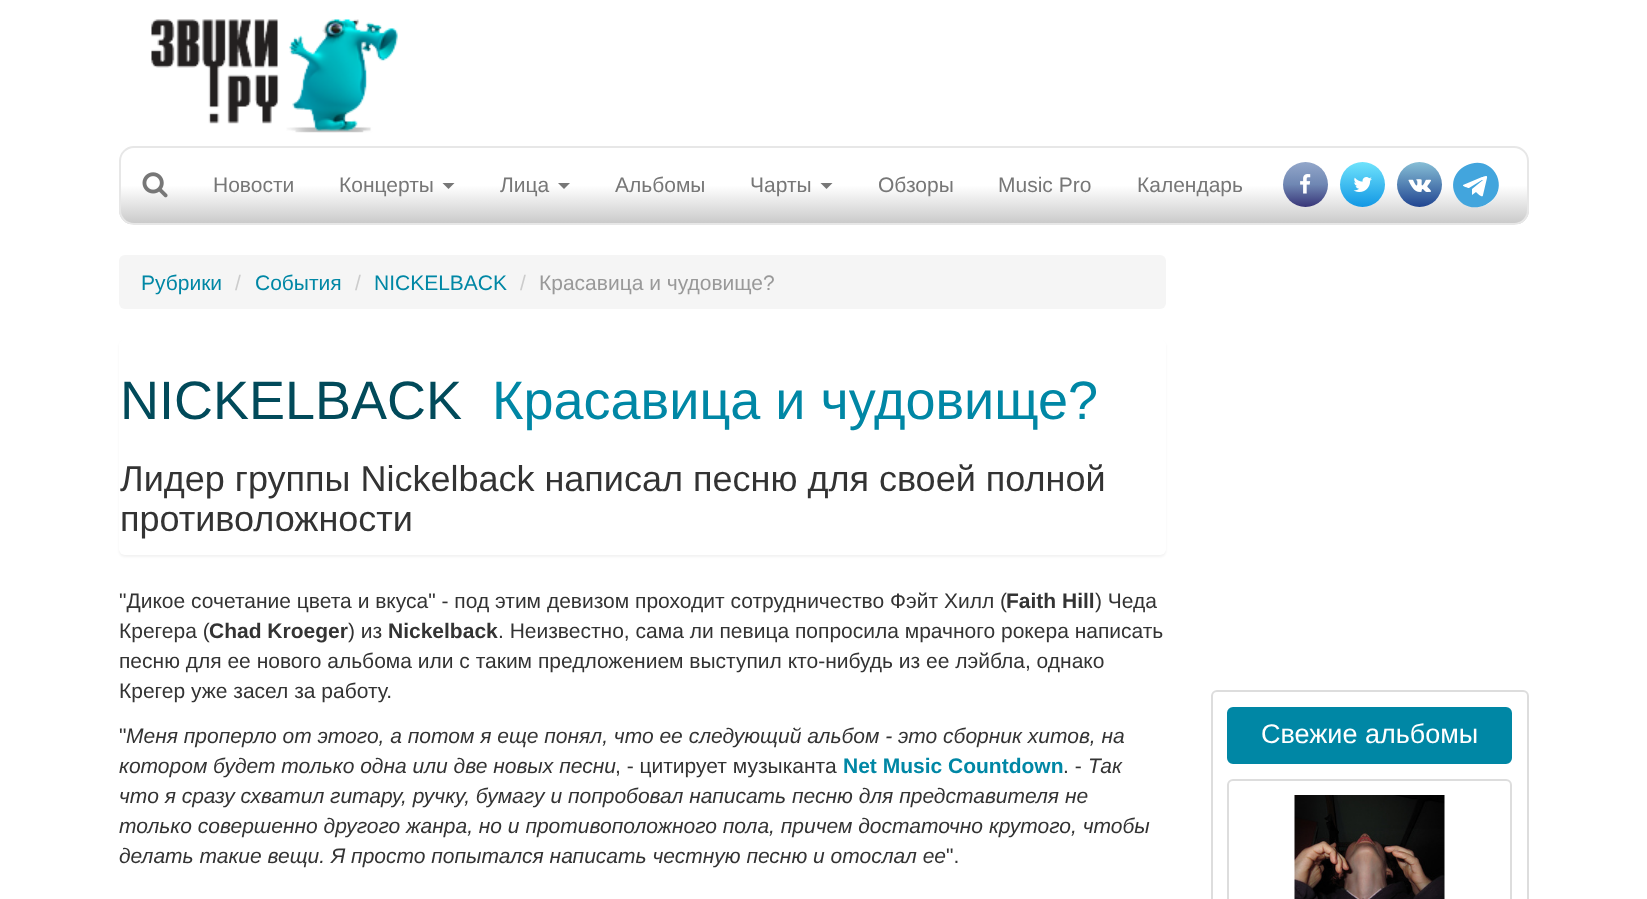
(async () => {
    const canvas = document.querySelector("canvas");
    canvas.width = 1647;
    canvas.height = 899;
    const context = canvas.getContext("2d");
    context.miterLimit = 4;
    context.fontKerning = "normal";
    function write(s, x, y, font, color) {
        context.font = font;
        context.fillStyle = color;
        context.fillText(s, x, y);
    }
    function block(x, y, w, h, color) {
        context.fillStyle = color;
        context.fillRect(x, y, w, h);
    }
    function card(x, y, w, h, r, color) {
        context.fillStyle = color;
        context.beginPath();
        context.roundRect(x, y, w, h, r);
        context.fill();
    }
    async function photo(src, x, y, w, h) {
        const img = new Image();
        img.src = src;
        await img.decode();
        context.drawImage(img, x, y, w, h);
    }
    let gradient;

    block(0, 0, 1647, 899, "rgb(255, 255, 255)");
    await photo("media/1.png", 151, 19, 247, 114);
    context.save();
    context.beginPath();
    context.roundRect(119, 146, 1410, 79, 15);
    context.clip();
    gradient = context.createLinearGradient(824, 147, 824, 224);
    gradient.addColorStop(0, "rgb(255, 255, 255)");
    gradient.addColorStop(0.5, "rgb(255, 255, 255)");
    gradient.addColorStop(1, "rgb(201, 201, 201)");
    context.fillStyle = gradient;
    context.fillRect(119, 147, 1410, 77);
    context.restore();
    context.beginPath();
    context.roundRect(120, 147, 1408, 77, 14);
    context.strokeStyle = "rgb(231, 231, 231)";
    context.lineWidth = 2;
    context.stroke();
    await photo("media/2.png", 142, 172, 26, 26);
    write("Новости", 213, 192, "21px Liberation Sans", "rgb(119, 119, 119)");
    write("Концерты", 339, 192, "21px Liberation Sans", "rgb(119, 119, 119)");
    context.beginPath();
    context.moveTo(442.5, 183);
    context.lineTo(454.5, 183);
    context.lineTo(448.5, 189);
    context.closePath();
    context.fill();
    write("Лица", 500, 192, "21px Liberation Sans", "rgb(119, 119, 119)");
    context.beginPath();
    context.moveTo(558, 183);
    context.lineTo(570, 183);
    context.lineTo(564, 189);
    context.closePath();
    context.fill();
    write("Альбомы", 615, 192, "21px Liberation Sans", "rgb(119, 119, 119)");
    write("Чарты", 750, 192, "21px Liberation Sans", "rgb(119, 119, 119)");
    context.beginPath();
    context.moveTo(820.5, 183);
    context.lineTo(832.5, 183);
    context.lineTo(826.5, 189);
    context.closePath();
    context.fill();
    write("Обзоры", 878, 192, "21px Liberation Sans", "rgb(119, 119, 119)");
    write("Music Pro", 998, 192, "21px Liberation Sans", "rgb(119, 119, 119)");
    write("Календарь", 1137, 192, "21px Liberation Sans", "rgb(119, 119, 119)");
    gradient = context.createLinearGradient(1305, 162, 1305, 207);
    gradient.addColorStop(0, "rgb(147, 167, 202)");
    gradient.addColorStop(0.5, "rgb(111, 135, 179)");
    gradient.addColorStop(1, "rgb(56, 53, 120)");
    context.fillStyle = gradient;
    context.beginPath();
    context.arc(1305.5, 184.5, 22.5, 0, Math.PI * 2);
    context.fill();
    await photo("media/3.png", 1300, 174, 11, 20);
    gradient = context.createLinearGradient(1362, 162, 1362, 207);
    gradient.addColorStop(0, "rgb(111, 227, 252)");
    gradient.addColorStop(1, "rgb(18, 151, 228)");
    context.fillStyle = gradient;
    context.beginPath();
    context.arc(1362.5, 184.5, 22.5, 0, Math.PI * 2);
    context.fill();
    await photo("media/4.png", 1353, 177, 19, 15);
    gradient = context.createLinearGradient(1419, 162, 1419, 207);
    gradient.addColorStop(0, "rgb(135, 191, 214)");
    gradient.addColorStop(1, "rgb(33, 69, 145)");
    context.fillStyle = gradient;
    context.beginPath();
    context.arc(1419.5, 184.5, 22.5, 0, Math.PI * 2);
    context.fill();
    await photo("media/5.png", 1408, 179, 23, 13);
    context.fillStyle = "rgb(255, 255, 255)";
    context.beginPath();
    context.arc(1476.5, 184.5, 22.5, 0, Math.PI * 2);
    context.fill();
    context.fillStyle = "rgb(66, 165, 221)";
    context.beginPath();
    context.moveTo(1483, 195);
    context.lineTo(1487, 178);
    context.bezierCurveTo(1488, 174, 1483, 177, 1482, 177);
    context.lineTo(1463, 185);
    context.bezierCurveTo(1462, 186, 1468, 188, 1469, 188);
    context.lineTo(1482, 180);
    context.bezierCurveTo(1482, 180, 1483, 180, 1483, 180);
    context.lineTo(1472, 189);
    context.lineTo(1472, 195);
    context.lineTo(1476, 192);
    context.bezierCurveTo(1477, 193, 1483, 199, 1483, 195);
    context.closePath();
    context.moveTo(1497, 176);
    context.bezierCurveTo(1508, 203, 1467, 221, 1455, 194);
    context.bezierCurveTo(1444, 167, 1485, 149, 1497, 176);
    context.closePath();
    context.fill();
    card(119, 255, 1047, 54, 6, "rgb(245, 245, 245)");
    write("Рубрики", 141, 290, "21px Liberation Sans", "rgb(0, 135, 165)");
    write("/", 235, 290, "21px Liberation Sans", "rgb(204, 204, 204)");
    write("События", 255, 290, "21px Liberation Sans", "rgb(0, 135, 165)");
    write("/", 355, 290, "21px Liberation Sans", "rgb(204, 204, 204)");
    write("NICKELBACK", 374, 290, "21px Liberation Sans", "rgb(0, 135, 165)");
    write("/", 520, 290, "21px Liberation Sans", "rgb(204, 204, 204)");
    write("Красавица и чудовище?", 539, 290, "21px Liberation Sans", "rgb(153, 153, 153)");
    context.fillStyle = "rgba(0, 0, 0, 0.05)";
    context.filter = "blur(1px)";
    context.beginPath();
    context.roundRect(119, 341, 1047, 216, 6);
    context.fill();
    context.filter = "none";
    card(119, 339, 1047, 216, 6, "rgb(255, 255, 255)");
    write("NICKELBACK", 120, 419, "54px Liberation Sans", "rgb(1, 74, 90)");
    write("Красавица и чудовище?", 492, 419, "54px Liberation Sans", "rgb(0, 135, 165)");
    write("Лидер группы Nickelback написал песню для своей полной", 120, 491, "36px Liberation Sans", "rgb(51, 51, 51)");
    write("противоложности", 120, 531, "36px Liberation Sans", "rgb(51, 51, 51)");
    write("\"Дикое сочетание цвета и вкуса\" - под этим девизом проходит сотрудничество Фэйт Хилл (", 119, 608, "21px Liberation Sans", "rgb(51, 51, 51)");
    write("Faith Hill", 1006, 608, "bold 21px Liberation Sans", "rgb(51, 51, 51)");
    write(") Чеда", 1095, 608, "21px Liberation Sans", "rgb(51, 51, 51)");
    write("Крегера (", 119, 638, "21px Liberation Sans", "rgb(51, 51, 51)");
    write("Chad Kroeger", 209, 638, "bold 21px Liberation Sans", "rgb(51, 51, 51)");
    write(") из", 348, 638, "21px Liberation Sans", "rgb(51, 51, 51)");
    write("Nickelback", 388, 638, "bold 21px Liberation Sans", "rgb(51, 51, 51)");
    write(". Неизвестно, сама ли певица попросила мрачного рокера написать", 498, 638, "21px Liberation Sans", "rgb(51, 51, 51)");
    write("песню для ее нового альбома или с таким предложением выступил кто-нибудь из ее лэйбла, однако", 119, 668, "21px Liberation Sans", "rgb(51, 51, 51)");
    write("Крегер уже засел за работу.", 119, 698, "21px Liberation Sans", "rgb(51, 51, 51)");
    write("\"", 119, 743, "21px Liberation Sans", "rgb(51, 51, 51)");
    write("Меня проперло от этого, а потом я еще понял, что ее следующий альбом - это сборник хитов, на", 126, 743, "italic 21px Liberation Sans", "rgb(51, 51, 51)");
    write("котором будет только одна или две новых песни", 119, 773, "italic 21px Liberation Sans", "rgb(51, 51, 51)");
    write(", - цитирует музыканта", 615, 773, "21px Liberation Sans", "rgb(51, 51, 51)");
    write("Net Music Countdown", 843, 773, "bold 21px Liberation Sans", "rgb(0, 135, 165)");
    write(". -", 1063, 773, "21px Liberation Sans", "rgb(51, 51, 51)");
    write("Так", 1088, 773, "italic 21px Liberation Sans", "rgb(51, 51, 51)");
    write("что я сразу схватил гитару, ручку, бумагу и попробовал написать песню для представителя не", 119, 803, "italic 21px Liberation Sans", "rgb(51, 51, 51)");
    write("только совершенно другого жанра, но и противоположного пола, причем достаточно крутого, чтобы", 119, 833, "italic 21px Liberation Sans", "rgb(51, 51, 51)");
    write("делать такие вещи. Я просто попытался написать честную песню и отослал ее", 119, 863, "italic 21px Liberation Sans", "rgb(51, 51, 51)");
    write("\".", 946, 863, "21px Liberation Sans", "rgb(51, 51, 51)");
    context.beginPath();
    context.roundRect(1212, 691, 316, 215, 5);
    context.strokeStyle = "rgb(221, 221, 221)";
    context.stroke();
    context.fillStyle = "rgb(0, 135, 165)";
    context.beginPath();
    context.roundRect(1228, 708, 283, 55, 5);
    context.fill();
    context.strokeStyle = "rgb(0, 135, 165)";
    context.stroke();
    write("Свежие альбомы", 1261, 743, "27px Liberation Sans", "rgb(255, 255, 255)");
    context.beginPath();
    context.roundRect(1228, 780, 283, 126, 5);
    context.strokeStyle = "rgb(221, 221, 221)";
    context.stroke();
    await photo("media/6.png", 1294, 795, 151, 104);
})();
